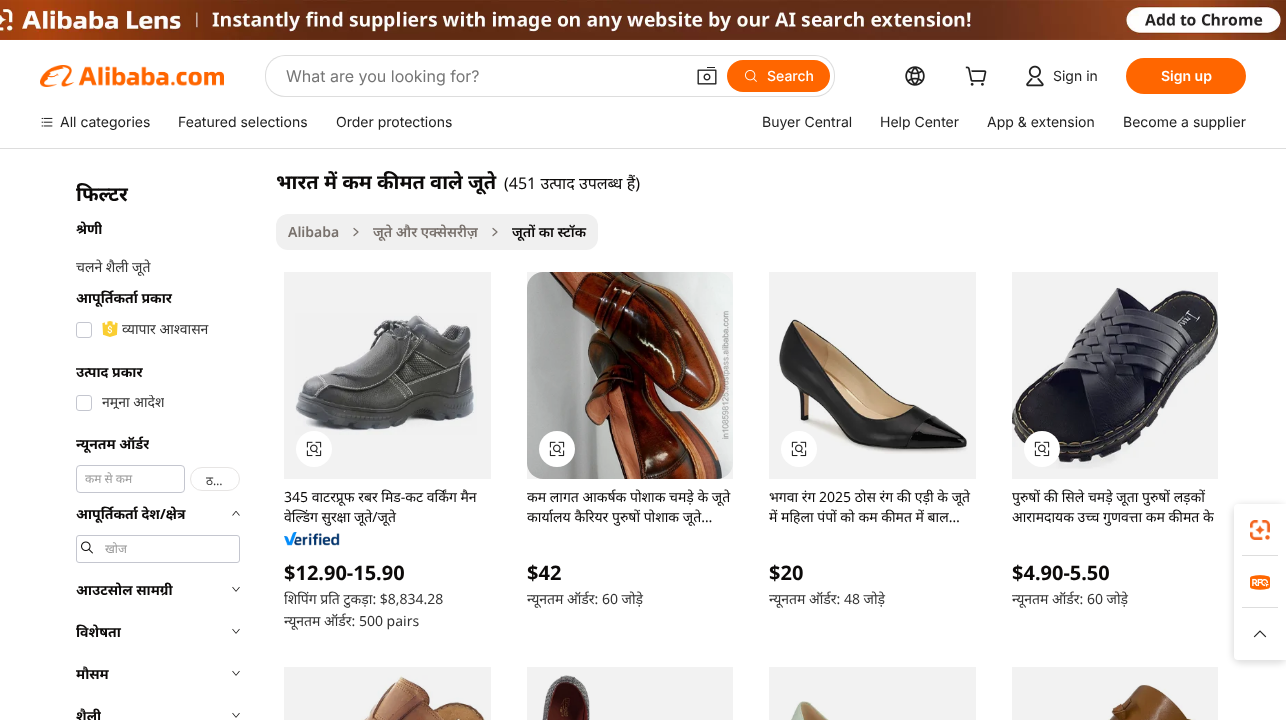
(async () => {
    const canvas = document.querySelector("canvas");
    canvas.width = 1286;
    canvas.height = 720;
    const context = canvas.getContext("2d");
    context.miterLimit = 4;
    context.fontKerning = "normal";
    function write(s, x, y, font, color) {
        context.font = font;
        context.fillStyle = color;
        context.fillText(s, x, y);
    }
    function block(x, y, w, h, color) {
        context.fillStyle = color;
        context.fillRect(x, y, w, h);
    }
    function card(x, y, w, h, r, color) {
        context.fillStyle = color;
        context.beginPath();
        context.roundRect(x, y, w, h, r);
        context.fill();
    }
    async function photo(src, x, y, w, h) {
        const img = new Image();
        img.src = src;
        await img.decode();
        context.drawImage(img, x, y, w, h);
    }

    block(0, 0, 1286, 720, "rgb(255, 255, 255)");
    await photo("media/1.png", 0, 0, 1286, 40);
    block(0, 148, 1286, 1, "rgb(221, 221, 221)");
    await photo("media/2.png", 40, 65, 184, 22);
    card(265, 55, 570, 42, 20, "rgb(221, 221, 221)");
    card(266, 56, 568, 40, 19, "rgb(255, 255, 255)");
    write("What are you looking for?", 286, 82, "16px Inter", "rgb(118, 118, 118)");
    await photo("media/3.png", 697, 67, 20, 18);
    card(727, 60, 103, 32, 16, "rgb(255, 102, 0)");
    await photo("media/4.png", 745, 70, 12, 12);
    write("Search", 767, 81, "500 14px Inter", "rgb(255, 255, 255)");
    await photo("media/5.png", 905, 66, 20, 20);
    await photo("media/6.png", 965, 66, 22, 20);
    await photo("media/7.png", 1026, 65, 18, 22);
    write("Sign in", 1053, 81, "14px Inter", "rgb(34, 34, 34)");
    card(1126, 58, 120, 36, 18, "rgb(255, 102, 0)");
    write("Sign up", 1161, 81, "600 14px Inter", "rgb(255, 255, 255)");
    await photo("media/8.png", 41, 117, 12, 10);
    write("All categories", 60, 127, "14px Inter", "rgb(34, 34, 34)");
    write("Featured selections", 178, 127, "14px Inter", "rgb(34, 34, 34)");
    write("Order protections", 336, 127, "14px Inter", "rgb(34, 34, 34)");
    write("Buyer Central", 762, 127, "14px Inter", "rgb(34, 34, 34)");
    write("Help Center", 880, 127, "14px Inter", "rgb(34, 34, 34)");
    write("App & extension", 987, 127, "14px Inter", "rgb(34, 34, 34)");
    write("Become a supplier", 1123, 127, "14px Inter", "rgb(34, 34, 34)");
    write("फिल्टर", 76, 201, "bold 20px Noto Sans", "rgb(12, 10, 9)");
    context.save();
    context.beginPath();
    context.rect(76, 208, 26, 42);
    context.clip();
    write("श्रेणी", 76, 234, "bold 14px Noto Sans", "rgb(12, 10, 9)");
    context.restore();
    write("चलने शैली जूते", 76, 272, "14px Noto Sans", "rgb(51, 51, 51)");
    write("आपूर्तिकर्ता प्रकार", 76, 303, "bold 14px Noto Sans", "rgb(12, 10, 9)");
    context.beginPath();
    context.roundRect(76.5, 322.5, 15, 15, 2.5);
    context.strokeStyle = "rgb(196, 198, 207)";
    context.stroke();
    await photo("media/9.png", 102, 321, 16, 16);
    write("व्यापार आश्वासन", 122, 334, "14px Noto Sans", "rgb(51, 51, 51)");
    write("उत्पाद प्रकार", 76, 377, "bold 14px Noto Sans", "rgb(12, 10, 9)");
    context.beginPath();
    context.roundRect(76.5, 395.5, 15, 15, 2.5);
    context.stroke();
    context.save();
    context.beginPath();
    context.rect(102, 395, 62, 14);
    context.clip();
    write("नमूना आदेश", 102, 407, "14px Noto Sans", "rgb(51, 51, 51)");
    context.restore();
    context.save();
    context.beginPath();
    context.rect(76, 423, 73, 42);
    context.clip();
    write("न्यूनतम ऑर्डर", 76, 449, "bold 14px Noto Sans", "rgb(12, 10, 9)");
    context.restore();
    context.beginPath();
    context.roundRect(76.5, 465.5, 108, 27, 3.5);
    context.stroke();
    write("कम से कम", 85, 483, "12px Noto Sans", "rgb(153, 153, 153)");
    context.beginPath();
    context.roundRect(190.5, 467.5, 49, 23, 11.5);
    context.strokeStyle = "rgb(231, 229, 228)";
    context.stroke();
    write("ठ…", 206, 485, "12px Noto Sans", "rgb(51, 51, 51)");
    write("आपूर्तिकर्ता देश/क्षेत्र", 76, 519, "bold 14px Noto Sans", "rgb(12, 10, 9)");
    await photo("media/10.png", 232, 511, 8, 5);
    context.beginPath();
    context.roundRect(76.5, 535.5, 163, 27, 2.5);
    context.strokeStyle = "rgb(196, 198, 207)";
    context.stroke();
    await photo("media/11.png", 81, 541, 12, 13);
    context.save();
    context.beginPath();
    context.rect(105, 540, 126, 17);
    context.clip();
    write("खोज", 105, 553, "12px Noto Sans", "rgb(153, 153, 153)");
    context.restore();
    write("आउटसोल सामग्री", 76, 595, "bold 14px Noto Sans", "rgb(12, 10, 9)");
    await photo("media/12.png", 232, 586, 8, 6);
    write("विशेषता", 76, 637, "bold 14px Noto Sans", "rgb(12, 10, 9)");
    await photo("media/12.png", 232, 628, 8, 6);
    context.save();
    context.beginPath();
    context.rect(76, 653, 33, 42);
    context.clip();
    write("मौसम", 76, 679, "bold 14px Noto Sans", "rgb(12, 10, 9)");
    context.restore();
    await photo("media/12.png", 232, 670, 8, 6);
    context.save();
    context.beginPath();
    context.rect(76, 695, 25, 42);
    context.clip();
    write("शैली", 76, 721, "bold 14px Noto Sans", "rgb(12, 10, 9)");
    context.restore();
    await photo("media/12.png", 232, 712, 8, 6);
    write("भारत में कम कीमत वाले जूते", 276, 189, "bold 20px Noto Sans", "rgb(12, 10, 9)");
    write("(451 उत्पाद उपलब्ध हैं)", 504, 189, "16px Noto Sans", "rgb(12, 10, 9)");
    card(276, 214, 322, 36, 12, "rgb(240, 240, 240)");
    write("Alibaba", 288, 237, "600 14px Noto Sans", "rgb(120, 113, 108)");
    context.beginPath();
    context.moveTo(354, 235.5);
    context.lineTo(358, 232);
    context.lineTo(354, 228.5);
    context.strokeStyle = "rgb(120, 113, 108)";
    context.lineWidth = 1.2;
    context.lineCap = "round";
    context.lineJoin = "round";
    context.stroke();
    write("जूते और एक्सेसरीज़", 373, 237, "600 14px Noto Sans", "rgb(120, 113, 108)");
    context.beginPath();
    context.moveTo(493, 235.5);
    context.lineTo(497, 232);
    context.lineTo(493, 228.5);
    context.stroke();
    write("जूतों का स्टॉक", 512, 237, "600 14px Noto Sans", "rgb(12, 10, 9)");
    await photo("media/13.png", 295, 313, 182, 122);
    block(284, 272, 207, 207, "rgba(0, 0, 0, 0.05)");
    context.fillStyle = "rgb(255, 255, 255)";
    context.beginPath();
    context.arc(314, 449, 18, 0, Math.PI * 2);
    context.fill();
    await photo("media/14.png", 306, 441, 16, 16);
    write("345 वाटरप्रूफ रबर मिड-कट वर्किंग मैन", 284, 502, "14px Noto Sans", "rgb(12, 10, 9)");
    context.save();
    context.beginPath();
    context.rect(284, 487, 207, 40);
    context.clip();
    write("वेल्डिंग सुरक्षा जूते/जूते", 284, 522, "14px Noto Sans", "rgb(12, 10, 9)");
    context.restore();
    await photo("media/15.png", 284, 532, 56, 14);
    write("$12.90-15.90", 284, 580, "bold 20px Noto Sans", "rgb(12, 10, 9)");
    write("शिपिंग प्रति टुकड़ा: $8,834.28", 284, 604, "14px Noto Sans", "rgb(51, 51, 51)");
    write("न्यूनतम ऑर्डर: 500 pairs", 284, 626, "14px Noto Sans", "rgb(51, 51, 51)");
    await photo("media/16.png", 527, 272, 206, 207);
    block(527, 272, 206, 207, "rgba(0, 0, 0, 0.05)");
    context.fillStyle = "rgb(255, 255, 255)";
    context.beginPath();
    context.arc(557, 449, 18, 0, Math.PI * 2);
    context.fill();
    await photo("media/14.png", 549, 441, 16, 16);
    write("कम लागत आकर्षक पोशाक चमड़े के जूते", 527, 502, "14px Noto Sans", "rgb(12, 10, 9)");
    write("कार्यालय कैरियर पुरुषों पोशाक जूते…", 527, 522, "14px Noto Sans", "rgb(12, 10, 9)");
    write("$42", 527, 580, "bold 20px Noto Sans", "rgb(12, 10, 9)");
    write("न्यूनतम ऑर्डर: 60 जोड़े", 527, 604, "14px Noto Sans", "rgb(51, 51, 51)");
    await photo("media/17.png", 777, 319, 191, 135);
    block(769, 272, 207, 207, "rgba(0, 0, 0, 0.05)");
    context.fillStyle = "rgb(255, 255, 255)";
    context.beginPath();
    context.arc(799, 449, 18, 0, Math.PI * 2);
    context.fill();
    await photo("media/14.png", 791, 441, 16, 16);
    write("भगवा रंग 2025 ठोस रंग की एड़ी के जूते", 769, 502, "14px Noto Sans", "rgb(12, 10, 9)");
    context.save();
    context.beginPath();
    context.rect(769, 487, 207, 40);
    context.clip();
    write("में महिला पंपों को कम कीमत में बाल…", 769, 522, "14px Noto Sans", "rgb(12, 10, 9)");
    context.restore();
    write("$20", 769, 580, "bold 20px Noto Sans", "rgb(12, 10, 9)");
    write("न्यूनतम ऑर्डर: 48 जोड़े", 769, 604, "14px Noto Sans", "rgb(51, 51, 51)");
    await photo("media/18.png", 1012, 287, 206, 182);
    block(1012, 272, 206, 207, "rgba(0, 0, 0, 0.05)");
    context.fillStyle = "rgb(255, 255, 255)";
    context.beginPath();
    context.arc(1042, 449, 18, 0, Math.PI * 2);
    context.fill();
    await photo("media/14.png", 1034, 441, 16, 16);
    context.save();
    context.beginPath();
    context.rect(1012, 487, 206, 40);
    context.clip();
    write("पुरुषों की सिले चमड़े जूता पुरुषों लड़कों", 1012, 502, "14px Noto Sans", "rgb(12, 10, 9)");
    context.restore();
    write("आरामदायक उच्च गुणवत्ता कम कीमत के", 1012, 522, "14px Noto Sans", "rgb(12, 10, 9)");
    write("$4.90-5.50", 1012, 580, "bold 20px Noto Sans", "rgb(12, 10, 9)");
    write("न्यूनतम ऑर्डर: 60 जोड़े", 1012, 604, "14px Noto Sans", "rgb(51, 51, 51)");
    await photo("media/19.png", 361, 675, 125, 45);
    block(284, 667, 207, 53, "rgba(0, 0, 0, 0.05)");
    await photo("media/20.png", 542, 675, 48, 45);
    block(527, 667, 206, 53, "rgba(0, 0, 0, 0.05)");
    await photo("media/21.png", 790, 701, 39, 19);
    block(769, 667, 207, 53, "rgba(0, 0, 0, 0.05)");
    await photo("media/22.png", 1108, 684, 88, 36);
    block(1012, 667, 206, 53, "rgba(0, 0, 0, 0.05)");
    context.fillStyle = "rgba(0, 0, 0, 0.12)";
    context.filter = "blur(3px)";
    context.beginPath();
    context.roundRect(1232, 504, 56, 160, 10);
    context.fill();
    context.filter = "none";
    context.fillStyle = "rgb(255, 255, 255)";
    context.beginPath();
    context.roundRect(1234, 504, 52, 156, [8, 0, 0, 8]);
    context.fill();
    card(1234, 504, 52, 52, 4, "rgb(255, 255, 255)");
    await photo("media/23.png", 1250, 520, 20, 20);
    block(1242, 555, 36, 1, "rgb(221, 221, 221)");
    await photo("media/24.png", 1250, 575, 20, 15);
    block(1242, 607, 36, 1, "rgb(221, 221, 221)");
    card(1234, 608, 52, 52, 4, "rgb(255, 255, 255)");
    await photo("media/25.png", 1253, 630, 14, 8);
})();
